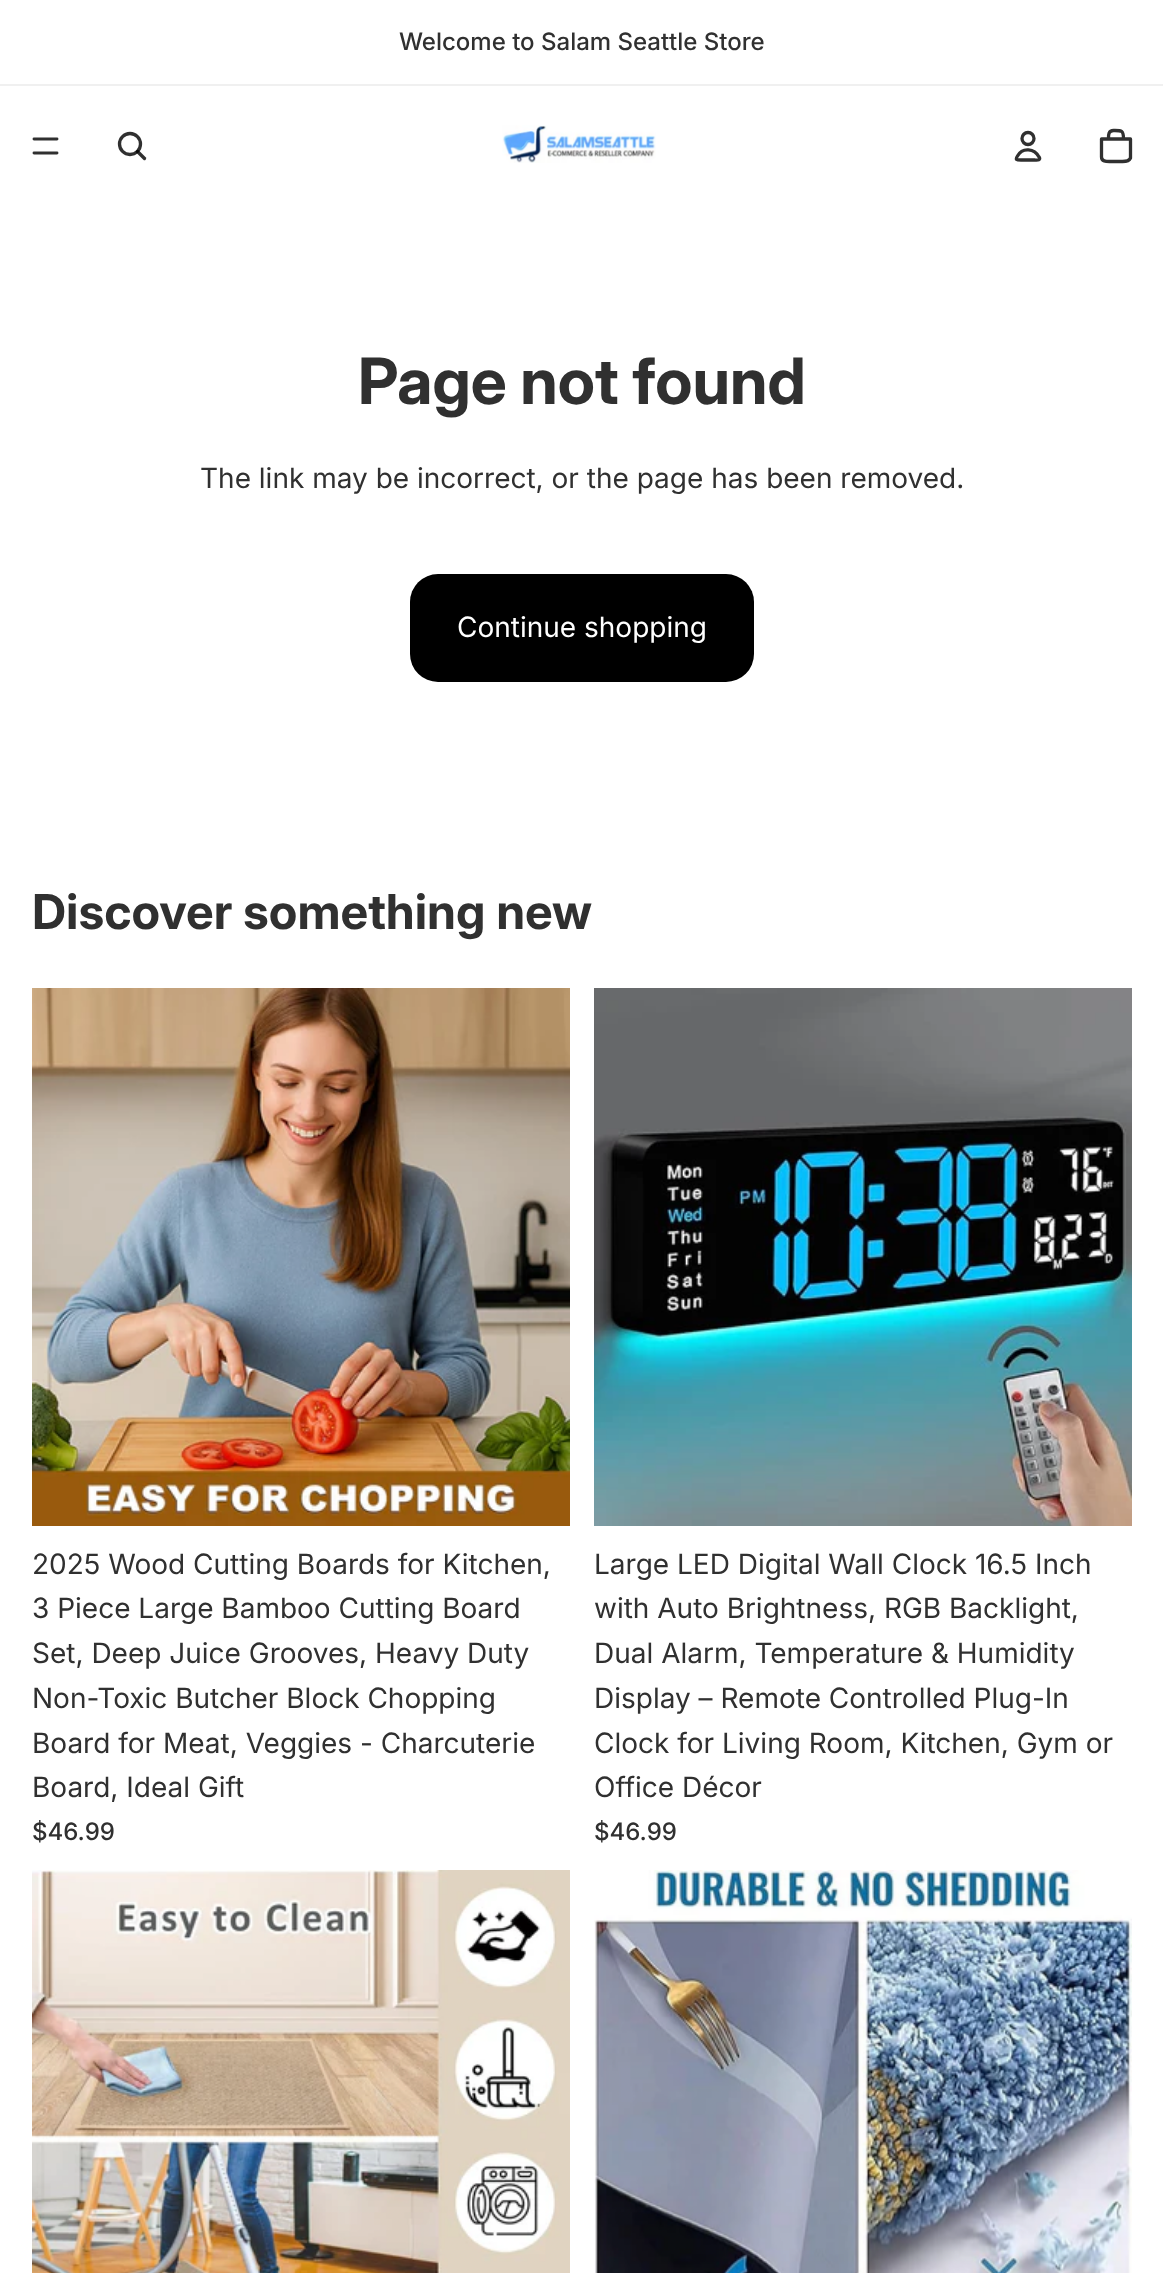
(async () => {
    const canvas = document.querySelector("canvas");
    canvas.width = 1163;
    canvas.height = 2273;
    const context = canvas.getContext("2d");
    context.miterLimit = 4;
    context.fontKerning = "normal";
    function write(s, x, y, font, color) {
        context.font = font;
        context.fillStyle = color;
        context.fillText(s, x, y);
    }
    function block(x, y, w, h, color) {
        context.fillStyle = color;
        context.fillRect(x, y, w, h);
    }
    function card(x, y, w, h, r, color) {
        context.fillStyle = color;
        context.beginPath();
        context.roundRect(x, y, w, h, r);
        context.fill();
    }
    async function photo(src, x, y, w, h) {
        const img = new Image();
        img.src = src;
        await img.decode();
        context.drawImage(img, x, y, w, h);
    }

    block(0, 0, 1163, 2273, "rgb(255, 255, 255)");
    block(0, 84, 1163, 2, "rgb(240, 240, 240)");
    write("Welcome to Salam Seattle Store", 399, 50, "500 24px Inter", "rgb(48, 48, 48)");
    context.beginPath();
    context.moveTo(34, 139);
    context.lineTo(57, 139);
    context.moveTo(34, 153);
    context.lineTo(57, 153);
    context.strokeStyle = "rgb(48, 48, 48)";
    context.lineWidth = 2.9;
    context.lineCap = "round";
    context.stroke();
    context.beginPath();
    context.arc(130, 144, 10.5, 0, Math.PI * 2);
    context.lineWidth = 3.3;
    context.stroke();
    context.beginPath();
    context.moveTo(137.5, 151.5);
    context.lineTo(144.5, 158.5);
    context.strokeStyle = "rgba(0, 0, 0, 0.81)";
    context.lineJoin = "round";
    context.stroke();
    await photo("media/1.png", 502, 125, 154, 38);
    context.beginPath();
    context.arc(1028, 138.5, 6, 0, Math.PI * 2);
    context.strokeStyle = "rgb(48, 48, 48)";
    context.stroke();
    context.beginPath();
    context.moveTo(1017.5, 156);
    context.bezierCurveTo(1015, 160, 1016.5, 160, 1021, 160);
    context.lineTo(1035, 160);
    context.bezierCurveTo(1035.5, 160, 1039, 160.5, 1039.5, 159);
    context.bezierCurveTo(1040, 158.5, 1039.5, 157.5, 1039, 157);
    context.bezierCurveTo(1034.5, 148.5, 1022.5, 147, 1017.5, 156);
    context.stroke();
    context.beginPath();
    context.moveTo(1101.5, 139);
    context.lineTo(1130.5, 139);
    context.lineTo(1130.5, 158);
    context.bezierCurveTo(1129, 161.5, 1125.5, 161.5, 1122.5, 161.5);
    context.lineTo(1109.5, 161.5);
    context.bezierCurveTo(1106, 161.5, 1101.5, 161.5, 1101.5, 157);
    context.closePath();
    context.moveTo(1113.5, 130.5);
    context.bezierCurveTo(1121.5, 130.5, 1123.5, 130, 1123.5, 139);
    context.lineTo(1108.5, 139);
    context.bezierCurveTo(1108.5, 135.5, 1108, 130.5, 1113.5, 130.5);
    context.stroke();
    write("Page not found", 358, 404, "bold 64px Inter", "rgb(48, 48, 48)");
    write("The link may be incorrect, or the page has been removed.", 200, 488, "28px Inter", "rgb(48, 48, 48)");
    card(410, 574, 344, 108, 28, "rgb(0, 0, 0)");
    write("Continue shopping", 457, 637, "28px Inter", "rgb(255, 255, 255)");
    write("Discover something new", 32, 929, "bold 48px 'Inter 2'", "rgb(48, 48, 48)");
    await photo("media/2.png", 32, 988, 538, 538);
    write("2025 Wood Cutting Boards for Kitchen,", 32, 1574, "28px Inter", "rgb(48, 48, 48)");
    write("3 Piece Large Bamboo Cutting Board", 32, 1618, "28px Inter", "rgb(48, 48, 48)");
    write("Set, Deep Juice Grooves, Heavy Duty", 32, 1663, "28px Inter", "rgb(48, 48, 48)");
    write("Non-Toxic Butcher Block Chopping", 32, 1708, "28px Inter", "rgb(48, 48, 48)");
    write("Board for Meat, Veggies - Charcuterie", 32, 1753, "28px Inter", "rgb(48, 48, 48)");
    write("Board, Ideal Gift", 32, 1797, "28px Inter", "rgb(48, 48, 48)");
    write("$46.99", 32, 1840, "500 24px Inter", "rgb(48, 48, 48)");
    await photo("media/3.png", 594, 988, 538, 538);
    write("Large LED Digital Wall Clock 16.5 Inch", 594, 1574, "28px Inter", "rgb(48, 48, 48)");
    write("with Auto Brightness, RGB Backlight,", 594, 1618, "28px Inter", "rgb(48, 48, 48)");
    write("Dual Alarm, Temperature & Humidity", 594, 1663, "28px Inter", "rgb(48, 48, 48)");
    write("Display – Remote Controlled Plug-In", 594, 1708, "28px Inter", "rgb(48, 48, 48)");
    write("Clock for Living Room, Kitchen, Gym or", 594, 1753, "28px Inter", "rgb(48, 48, 48)");
    write("Office Décor", 594, 1797, "28px Inter", "rgb(48, 48, 48)");
    write("$46.99", 594, 1840, "500 24px Inter", "rgb(48, 48, 48)");
    await photo("media/4.png", 32, 1870, 538, 403);
    await photo("media/5.png", 594, 1870, 538, 403);
})();
